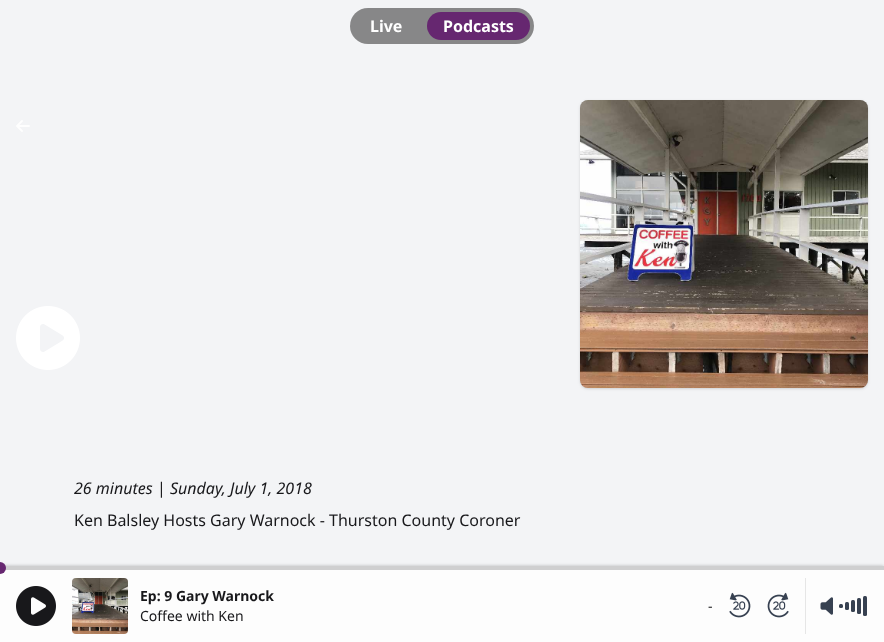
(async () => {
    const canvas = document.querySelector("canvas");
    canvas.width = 884;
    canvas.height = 642;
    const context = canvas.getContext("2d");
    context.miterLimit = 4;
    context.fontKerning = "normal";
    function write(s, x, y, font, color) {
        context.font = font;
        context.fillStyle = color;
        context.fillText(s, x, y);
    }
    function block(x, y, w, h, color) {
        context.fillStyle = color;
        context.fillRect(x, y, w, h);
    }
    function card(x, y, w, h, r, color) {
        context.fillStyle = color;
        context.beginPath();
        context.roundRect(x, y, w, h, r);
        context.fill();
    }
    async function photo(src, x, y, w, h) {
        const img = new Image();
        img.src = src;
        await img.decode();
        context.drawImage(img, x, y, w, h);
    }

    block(0, 0, 884, 642, "rgb(243, 244, 246)");
    card(350, 8, 184, 36, 18, "rgb(135, 135, 136)");
    write("Live", 370, 32, "bold 16px Noto Sans", "rgb(255, 255, 255)");
    card(427, 12, 103, 28, 14, "rgb(102, 39, 112)");
    write("Podcasts", 443, 32, "bold 16px Noto Sans", "rgb(255, 255, 255)");
    await photo("media/1.png", 16, 120, 14, 12);
    await photo("media/2.png", 16, 306, 64, 64);
    context.fillStyle = "rgba(0, 0, 0, 0.1)";
    context.filter = "blur(1px)";
    context.beginPath();
    context.roundRect(581, 102, 286, 286, 7);
    context.fill();
    context.filter = "none";
    context.filter = "blur(1.5px)";
    context.beginPath();
    context.roundRect(580, 101, 288, 288, 8);
    context.fill();
    context.filter = "none";
    card(580, 100, 288, 288, 8, "rgba(24, 24, 27, 0.1)");
    await photo("media/3.png", 580, 100, 288, 288);
    write("26 minutes", 74, 494, "italic 16px Noto Sans", "rgb(24, 24, 27)");
    write("|", 157, 494, "16px Noto Sans", "rgb(24, 24, 27)");
    write("Sunday, July 1, 2018", 170, 494, "italic 16px Noto Sans", "rgb(24, 24, 27)");
    write("Ken Balsley Hosts Gary Warnock - Thurston County Coroner", 74, 526, "16px Noto Sans", "rgb(24, 24, 27)");
    context.fillStyle = "rgba(0, 0, 0, 0.1)";
    context.filter = "blur(1px)";
    context.beginPath();
    context.rect(1, 566, 882, 74);
    context.fill();
    context.filter = "none";
    context.filter = "blur(1.5px)";
    context.beginPath();
    context.rect(0, 565, 884, 76);
    context.fill();
    context.filter = "none";
    block(0, 570, 884, 72, "rgb(253, 253, 253)");
    block(0, 566, 884, 4, "rgb(207, 207, 208)");
    context.fillStyle = "rgb(102, 39, 112)";
    context.beginPath();
    context.arc(0, 568, 6, 0, Math.PI * 2);
    context.fill();
    await photo("media/4.png", 16, 586, 40, 40);
    await photo("media/5.png", 72, 578, 56, 56);
    write("Ep: 9 Gary Warnock", 140, 601, "bold 14px Noto Sans", "rgb(24, 24, 27)");
    write("Coffee with Ken", 140, 621, "14px Noto Sans", "rgb(24, 24, 27)");
    write("-", 708, 611, "14px Noto Sans", "rgb(24, 24, 27)");
    await photo("media/6.png", 729, 592, 22, 26);
    await photo("media/7.png", 767, 592, 22, 26);
    block(805, 578, 1, 56, "rgb(230, 230, 230)");
    await photo("media/8.png", 820, 597, 13, 18);
    card(839, 604, 4, 4, 1.5, "rgb(55, 65, 81)");
    card(845, 602, 4, 8, 1.5, "rgb(55, 65, 81)");
    card(851, 600, 4, 12, 1.5, "rgb(55, 65, 81)");
    card(857, 598, 4, 16, 1.5, "rgb(55, 65, 81)");
    card(863, 596, 4, 20, 1.5, "rgb(55, 65, 81)");
})();
